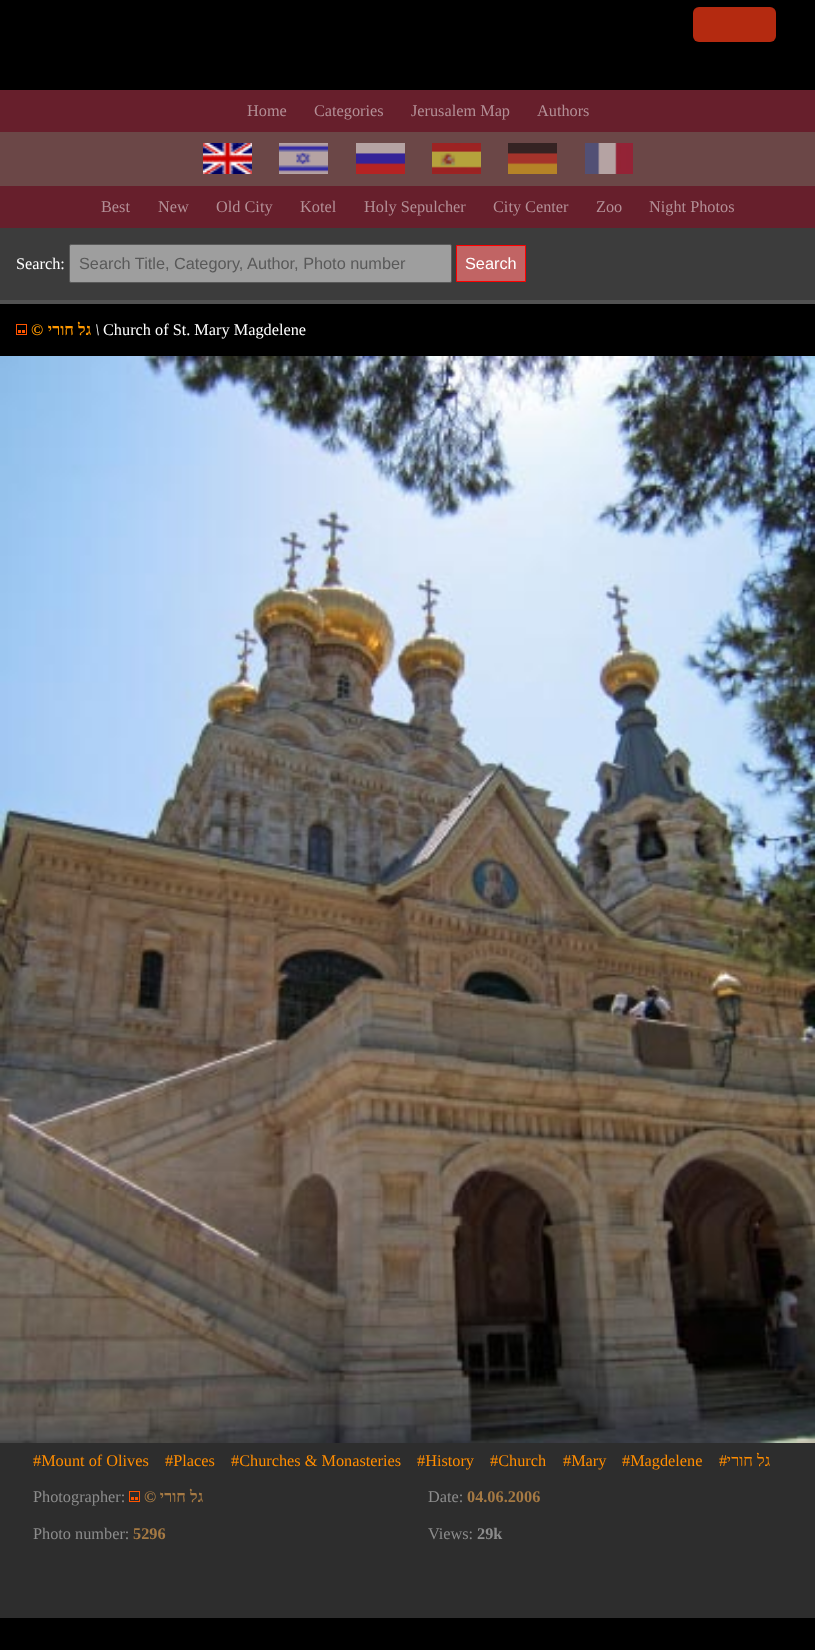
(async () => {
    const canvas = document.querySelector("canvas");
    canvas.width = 815;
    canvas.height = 1650;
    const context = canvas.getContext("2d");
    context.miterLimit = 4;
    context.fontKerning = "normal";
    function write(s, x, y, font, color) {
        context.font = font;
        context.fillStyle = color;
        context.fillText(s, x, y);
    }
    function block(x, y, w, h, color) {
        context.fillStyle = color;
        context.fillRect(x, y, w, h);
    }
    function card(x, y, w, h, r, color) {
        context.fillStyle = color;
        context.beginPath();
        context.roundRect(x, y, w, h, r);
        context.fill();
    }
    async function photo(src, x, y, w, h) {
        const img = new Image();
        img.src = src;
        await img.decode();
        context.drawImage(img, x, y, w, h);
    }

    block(0, 0, 815, 1650, "rgb(0, 0, 0)");
    card(693, 7, 83, 35, 6, "rgb(180, 42, 16)");
    block(0, 90, 815, 42, "rgb(103, 31, 44)");
    write("Home", 247, 116, "16.3px Liberation Serif", "rgb(179, 143, 150)");
    write("Categories", 314, 116, "16.3px Liberation Serif", "rgb(179, 143, 150)");
    write("Jerusalem Map", 411, 116, "16.3px Liberation Serif", "rgb(179, 143, 150)");
    write("Authors", 537, 116, "16.3px Liberation Serif", "rgb(179, 143, 150)");
    block(0, 132, 815, 54, "rgb(107, 71, 71)");
    await photo("media/1.png", 203, 143, 49, 31);
    await photo("media/2.png", 279, 143, 49, 31);
    await photo("media/3.png", 356, 143, 49, 31);
    await photo("media/4.png", 432, 143, 49, 31);
    await photo("media/5.png", 508, 143, 49, 31);
    await photo("media/6.png", 585, 143, 48, 31);
    block(0, 186, 815, 42, "rgb(103, 31, 44)");
    write("Best", 101, 212, "16.3px Liberation Serif", "rgb(179, 143, 150)");
    write("New", 158, 212, "16.3px Liberation Serif", "rgb(179, 143, 150)");
    write("Old City", 216, 212, "16.3px Liberation Serif", "rgb(179, 143, 150)");
    write("Kotel", 300, 212, "16.3px Liberation Serif", "rgb(179, 143, 150)");
    write("Holy Sepulcher", 364, 212, "16.3px Liberation Serif", "rgb(179, 143, 150)");
    write("City Center", 493, 212, "16.3px Liberation Serif", "rgb(179, 143, 150)");
    write("Zoo", 596, 212, "16.3px Liberation Serif", "rgb(179, 143, 150)");
    write("Night Photos", 649, 212, "16.3px Liberation Serif", "rgb(179, 143, 150)");
    block(0, 228, 815, 72, "rgb(60, 60, 60)");
    write("Search:", 16, 269, "16.3px Liberation Serif", "rgb(255, 255, 255)");
    context.fillStyle = "rgb(158, 158, 158)";
    context.beginPath();
    context.roundRect(69.5, 244.5, 382, 38, 1.5);
    context.fill();
    context.strokeStyle = "rgb(89, 89, 89)";
    context.stroke();
    write("Search Title, Category, Author, Photo number", 79, 269, "16.3px Liberation Sans", "rgb(89, 89, 89)");
    context.fillStyle = "rgb(193, 100, 100)";
    context.beginPath();
    context.rect(456.5, 245.5, 69, 36);
    context.fill();
    context.strokeStyle = "rgb(255, 0, 0)";
    context.stroke();
    write("Search", 465, 269, "16.3px Liberation Sans", "rgb(255, 255, 255)");
    block(0, 300, 815, 4, "rgb(82, 82, 82)");
    await photo("media/7.png", 16, 324, 11, 11);
    write("©", 31, 335, "bold 16.3px Liberation Serif", "rgb(255, 153, 0)");
    context.direction = "rtl";
    write("גל חורי", 91, 335, "bold 16.3px Liberation Serif", "rgb(255, 153, 0)");
    context.direction = "ltr";
    write("\\", 95, 335, "italic 16.3px Liberation Serif", "rgb(255, 255, 255)");
    write("Church of St. Mary Magdelene", 103, 335, "16.3px Liberation Serif", "rgb(255, 255, 255)");
    await photo("media/8.png", 0, 356, 815, 1087);
    block(0, 1443, 815, 175, "rgb(45, 45, 45)");
    write("#Mount of Olives", 33, 1466, "16.3px Liberation Serif", "rgb(255, 141, 0)");
    write("#Places", 165, 1466, "16.3px Liberation Serif", "rgb(255, 141, 0)");
    write("#Churches & Monasteries", 231, 1466, "16.3px Liberation Serif", "rgb(255, 141, 0)");
    write("#History", 417, 1466, "16.3px Liberation Serif", "rgb(255, 141, 0)");
    write("#Church", 490, 1466, "16.3px Liberation Serif", "rgb(255, 141, 0)");
    write("#Mary", 563, 1466, "16.3px Liberation Serif", "rgb(255, 141, 0)");
    write("#Magdelene", 622, 1466, "16.3px Liberation Serif", "rgb(255, 141, 0)");
    write("#", 719, 1466, "16.3px Liberation Serif", "rgb(255, 141, 0)");
    context.direction = "rtl";
    write("גל חורי", 770, 1466, "16.3px Liberation Serif", "rgb(255, 141, 0)");
    context.direction = "ltr";
    write("Photographer:", 33, 1502, "16.3px Liberation Serif", "rgb(140, 140, 140)");
    await photo("media/9.png", 129, 1491, 11, 11);
    write("©", 144, 1502, "bold 16.3px Liberation Serif", "rgb(165, 121, 67)");
    context.direction = "rtl";
    write("גל חורי", 203, 1502, "bold 16.3px Liberation Serif", "rgb(165, 121, 67)");
    context.direction = "ltr";
    write("Date:", 428, 1502, "16.3px Liberation Serif", "rgb(140, 140, 140)");
    write("04.06.2006", 467, 1502, "bold 16.3px Liberation Serif", "rgb(165, 121, 67)");
    write("Photo number:", 33, 1539, "16.3px Liberation Serif", "rgb(140, 140, 140)");
    write("5296", 133, 1539, "bold 16.3px Liberation Serif", "rgb(165, 121, 67)");
    write("Views:", 428, 1539, "16.3px Liberation Serif", "rgb(140, 140, 140)");
    write("29k", 477, 1539, "bold 16.3px Liberation Serif", "rgb(140, 140, 140)");
})();
